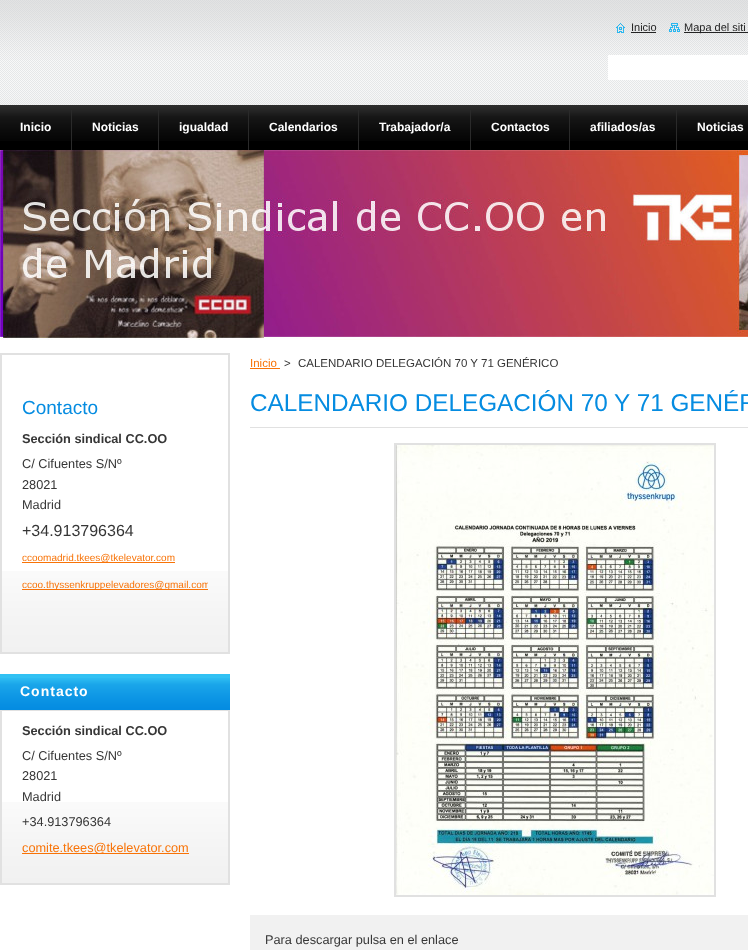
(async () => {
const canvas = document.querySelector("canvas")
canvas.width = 748
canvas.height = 950
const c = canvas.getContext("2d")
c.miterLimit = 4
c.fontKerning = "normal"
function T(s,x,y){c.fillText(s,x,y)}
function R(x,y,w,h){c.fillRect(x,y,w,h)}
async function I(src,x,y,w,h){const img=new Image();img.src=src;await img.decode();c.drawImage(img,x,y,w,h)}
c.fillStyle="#fff"
R(0,0,748,950)
await I("1.png",0,0,748,105)
await I("2.png",616,23,9,10)
c.font="11px Liberation Sans"
c.fillStyle="#242424"
T("Inicio",631,31)
R(631,32,25,1)
await I("3.png",669,23,11,9)
R(684,32,64,1)
T("Mapa del siti",684,31)
c.fillStyle="#fff"
R(608,55,140,25)
c.fillStyle="#000"
R(0,141,748,9)
await I("4.png",0,105,748,36)
c.fillStyle="#2a2a2a"
R(71,110,1,40)
c.font="bold 12px Liberation Sans"
c.fillStyle="#fff"
T("Inicio",20,131)
c.fillStyle="#2a2a2a"
R(158,110,1,40)
c.fillStyle="#fff"
T("Noticias",92,131)
c.fillStyle="#2a2a2a"
R(248,110,1,40)
c.fillStyle="#fff"
T("igualdad",179,131)
c.fillStyle="#2a2a2a"
R(358,110,1,40)
c.fillStyle="#fff"
T("Calendarios",269,131)
c.fillStyle="#2a2a2a"
R(470,110,1,40)
c.fillStyle="#fff"
T("Trabajador/a",379,131)
c.fillStyle="#2a2a2a"
R(569,110,1,40)
c.fillStyle="#fff"
T("Contactos",491,131)
c.fillStyle="#2a2a2a"
R(676,110,1,40)
c.fillStyle="#fff"
T("afiliados/as",590,131)
T("Noticias",697,131)
await I("5.png",0,150,748,190)
await I("6.png",2,571,226,81)
c.strokeStyle="#e1e1e1"
c.lineWidth=2
c.strokeRect(1,354,228,299)
c.font="19px Liberation Sans"
c.fillStyle="#058ce1"
T("Contacto",22,414)
c.font="bold 12.75px Liberation Sans"
c.fillStyle="#363636"
T("Sección sindical CC.OO",22,443)
c.font="12.75px Liberation Sans"
T("C/ Cifuentes S/Nº",22,468)
T("28021",22,489)
T("Madrid",22,509)
c.font="16px Liberation Sans"
T("+34.913796364",22,536)
c.fillStyle="#f87307"
R(22,562,153,1)
c.font="10px Liberation Sans"
T("ccoomadrid.tkees@tkelevator.com",22,561)
R(22,589,186,1)
c.save()
c.beginPath()
c.rect(22,355,186,277)
c.clip()
T("ccoo.thyssenkruppelevadores@gmail.com",22,588)
c.restore()
await I("6.png",2,802,226,81)
c.fillStyle="#31c1f3"
R(0,674,230,4)
await I("7.png",0,678,230,32)
c.fillStyle="#e1e1e1"
R(0,710,230,1)
c.letterSpacing="1px"
c.font="bold 14px Liberation Sans"
c.fillStyle="#fff"
T("Contacto",20,696)
c.fillStyle="#e1e1e1"
R(228,711,2,174)
R(0,883,230,2)
R(0,711,2,174)
c.letterSpacing="0px"
c.font="bold 12.75px Liberation Sans"
c.fillStyle="#363636"
T("Sección sindical CC.OO",22,735)
c.font="12.75px Liberation Sans"
T("C/ Cifuentes S/Nº",22,760)
T("28021",22,780)
T("Madrid",22,801)
T("+34.913796364",22,826)
c.fillStyle="#f87307"
R(22,853,167,1)
T("comite.tkees@tkelevator.com",22,852)
c.font="11.5px Liberation Sans"
T("Inicio",250,367)
R(250,368,30,1)
c.fillStyle="#363636"
T(">",284,367)
T("CALENDARIO DELEGACIÓN 70 Y 71 GENÉRICO",298,367)
c.fillStyle="#e1e1e1"
R(250,427,498,1)
c.font="24.3px Liberation Sans"
c.fillStyle="#058ce1"
T("CALENDARIO DELEGACIÓN 70 Y 71 GENÉR",250,411)
c.strokeRect(395,444,320,452)
await I("8.png",396,445,318,450)
c.fillStyle="#f1f1f1"
R(250,915,498,35)
c.font="12.75px Liberation Sans"
c.fillStyle="#363636"
T("Para descargar pulsa en el enlace",265,944)
})()
